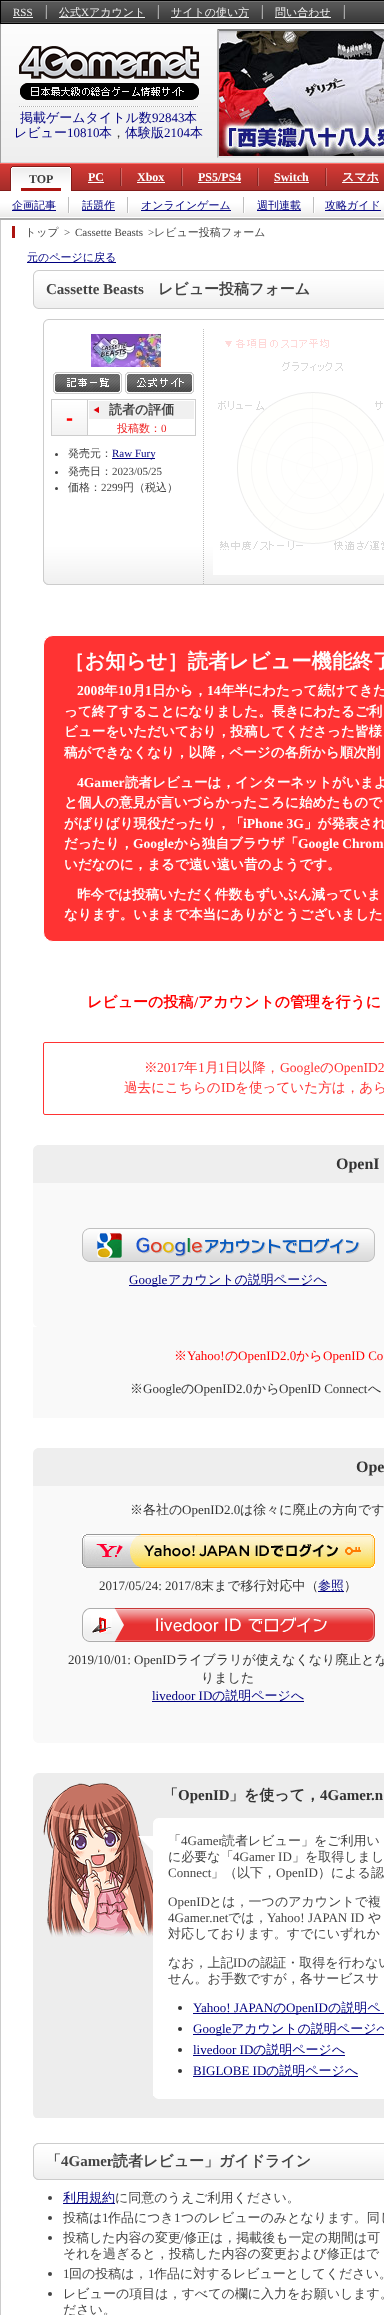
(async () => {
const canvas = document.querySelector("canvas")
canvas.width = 384
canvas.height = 2315
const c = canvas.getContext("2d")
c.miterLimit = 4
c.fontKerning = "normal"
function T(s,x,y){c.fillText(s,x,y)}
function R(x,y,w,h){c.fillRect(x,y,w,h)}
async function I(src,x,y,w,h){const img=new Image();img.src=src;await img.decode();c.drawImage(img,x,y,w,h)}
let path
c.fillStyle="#fff"
R(0,0,384,2315)
c.fillStyle="#ccc"
R(0,220,1,2095)
await I("1.png",1,0,383,163)
c.fillStyle="#000"
R(0,0,1,24)
c.fillStyle="#a7a7a7"
R(46,5,1,14)
c.fillStyle="#5d5d5d"
R(45,5,1,14)
c.font="11px Liberation Serif"
c.fillStyle="#f0f0f0"
T("RSS",13,16)
R(13,17,20,1)
c.fillStyle="#a7a7a7"
R(158,5,1,14)
c.fillStyle="#5d5d5d"
R(157,5,1,14)
c.fillStyle="#f0f0f0"
R(59,17,86,1)
c.font="500 11px WenQuanYi Zen Hei"
T("公式",59,16)
c.font="11px Liberation Serif"
T("X",81,16)
c.font="500 11px WenQuanYi Zen Hei"
T("アカウント",89,16)
c.fillStyle="#a7a7a7"
R(262,5,1,14)
c.fillStyle="#5d5d5d"
R(261,5,1,14)
c.fillStyle="#f0f0f0"
R(171,17,78,1)
T("サイトの使い方",171,16)
c.fillStyle="#a7a7a7"
R(344,5,1,14)
c.fillStyle="#5d5d5d"
R(343,5,1,14)
c.fillStyle="#f0f0f0"
R(275,17,56,1)
T("問い合わせ",275,16)
c.fillStyle="#a0a0a0"
R(0,24,1,139)
await I("2.png",19,46,180,54)
await I("3.png",19,106,180,1)
c.font="500 13px WenQuanYi Zen Hei"
c.fillStyle="#000080"
T("掲載ゲームタイトル数",20,122)
c.font="13px Liberation Serif"
T("92843",152,122)
c.font="500 13px WenQuanYi Zen Hei"
T("本",184,122)
T("レビュー",14,137)
c.font="13px Liberation Serif"
T("10810",67,137)
c.font="500 13px WenQuanYi Zen Hei"
T("本",99,137)
c.fillStyle="#333"
T("，",112,137)
c.fillStyle="#000080"
T("体験版",125,137)
c.font="13px Liberation Serif"
T("2104",164,137)
c.font="500 13px WenQuanYi Zen Hei"
T("本",190,137)
c.fillStyle="#7f7f7f"
path = new Path2D("M217 29h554l-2 2h-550z")
c.fill(path)
c.fillStyle="#e3e3e3"
path = new Path2D("M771 158h-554l2-2h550z")
c.fill(path)
c.fillStyle="#afafaf"
path = new Path2D("M217 158v-129l2 2v125z")
c.fill(path)
await I("4.png",219,31,165,125)
await I("5.png",0,163,384,57)
await I("6.png",10,166,60,25)
await I("7.png",70,166,2,25)
c.fillStyle="#ac1410"
R(21,188,40,3)
c.font="bold 12px Liberation Serif"
c.fillStyle="#3d3d3d"
T("TOP",29,183)
c.fillStyle="#ffffff40"
R(121,168,1,18)
c.fillStyle="#00000040"
R(120,168,1,18)
c.fillStyle="#fff"
T("PC",88,181)
R(88,182,16,1)
c.fillStyle="#ffffff40"
R(182,168,1,18)
c.fillStyle="#00000040"
R(181,168,1,18)
c.fillStyle="#fff"
T("Xbox",137,181)
R(137,182,28,1)
c.fillStyle="#ffffff40"
R(258,168,1,18)
c.fillStyle="#00000040"
R(257,168,1,18)
c.fillStyle="#fff"
T("PS5/PS4",198,181)
R(198,182,43,1)
c.fillStyle="#ffffff40"
R(326,168,1,18)
c.fillStyle="#00000040"
R(325,168,1,18)
c.fillStyle="#fff"
T("Switch",274,181)
R(274,182,35,1)
R(342,182,37,1)
c.font="bold 12px WenQuanYi Zen Hei"
T("スマホ",342,181)
R(69,197,1,16)
c.fillStyle="#bfbfbf"
R(68,197,1,16)
c.fillStyle="#000080"
R(12,210,44,1)
c.font="500 11px WenQuanYi Zen Hei"
T("企画記事",12,209)
c.fillStyle="#fff"
R(128,197,1,16)
c.fillStyle="#bfbfbf"
R(127,197,1,16)
c.fillStyle="#000080"
R(82,210,33,1)
T("話題作",82,209)
c.fillStyle="#fff"
R(244,197,1,16)
c.fillStyle="#bfbfbf"
R(243,197,1,16)
c.fillStyle="#000080"
R(141,210,90,1)
T("オンラインゲーム",141,209)
c.fillStyle="#fff"
R(314,197,1,16)
c.fillStyle="#bfbfbf"
R(313,197,1,16)
c.fillStyle="#000080"
R(257,210,44,1)
T("週刊連載",257,209)
R(325,210,56,1)
T("攻略ガイド",325,209)
c.fillStyle="#ac1410"
R(12,226,3,12)
c.fillStyle="#444"
T("トップ",25,236)
c.font="11px Liberation Serif"
T(">",64,236)
T("Cassette Beasts",75,236)
T(">",148,236)
c.font="500 11px WenQuanYi Zen Hei"
T("レビュー投稿フォーム",154,236)
c.fillStyle="#000080"
R(27,262,89,1)
T("元のページに戻る",27,261)
await I("8.png",33,270,351,5)
await I("9.png",33,275,351,34)
c.font="bold 15px Liberation Serif"
c.fillStyle="#444"
T("Cassette Beasts",46,294)
c.font="bold 15px WenQuanYi Zen Hei"
T("レビュー投稿フォーム",158,294)
await I("10.png",43,324,341,261)
await I("11.png",43,319,341,5)
await I("12.png",203,329,1,255)
await I("13.png",91,334,70,33)
await I("14.png",53,372,69,22)
await I("15.png",125,372,69,22)
await I("16.png",51,399,145,37)
c.font="bold 13px WenQuanYi Zen Hei"
T("読者の評価",109,414)
c.font="bold 21px Liberation Sans"
c.fillStyle="#f00"
T("-",66,425)
c.font="500 11px WenQuanYi Zen Hei"
c.fillStyle="#e22"
T("投稿数：",117,432)
c.font="11px Liberation Serif"
T("0",161,432)
c.fillStyle="#444"
c.beginPath()
c.arc(56.5,454.5,1.5,0,7)
c.fill()
c.font="500 11px WenQuanYi Zen Hei"
T("発売元：",68,457)
c.fillStyle="#000080"
R(112,458,43,1)
c.font="11px Liberation Serif"
T("Raw Fury",112,457)
c.fillStyle="#444"
c.beginPath()
c.arc(56.5,472.5,1.5,0,7)
c.fill()
c.font="500 11px WenQuanYi Zen Hei"
T("発売日：",68,475)
c.font="11px Liberation Serif"
T("2023/05/25",112,475)
c.beginPath()
c.arc(56.5,488.5,1.5,0,7)
c.fill()
c.font="500 11px WenQuanYi Zen Hei"
T("価格：",68,491)
c.font="11px Liberation Serif"
T("2299",101,491)
c.font="500 11px WenQuanYi Zen Hei"
T("円（税込）",123,491)
await I("17.png",213,329,171,246)
c.fillStyle="#f33"
c.beginPath()
c.roundRect(43.5,635.5,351,306,9.5)
c.fill()
c.strokeStyle="#fff"
c.stroke()
c.font="bold 20.4px WenQuanYi Zen Hei"
c.fillStyle="#fff"
T("［お知らせ］読者レビュー機能終了",64,668)
c.font="bold 13.6px Liberation Serif"
T("2008",77,695)
c.font="bold 13.6px WenQuanYi Zen Hei"
T("年",104,695)
c.font="bold 13.6px Liberation Serif"
T("10",118,695)
c.font="bold 13.6px WenQuanYi Zen Hei"
T("月",132,695)
c.font="bold 13.6px Liberation Serif"
T("1",145,695)
c.font="bold 13.6px WenQuanYi Zen Hei"
T("日から，",152,695)
c.font="bold 13.6px Liberation Serif"
T("14",207,695)
c.font="bold 13.6px WenQuanYi Zen Hei"
T("年半にわたって続けてきた",221,695)
T("って終了することになりました。長きにわたるご利",64,716)
T("ビューをいただいており，投稿してくださった皆様",64,736)
T("稿ができなくなり，以降，ページの各所から順次削",64,757)
c.font="bold 13.6px Liberation Serif"
T("4Gamer",77,787)
c.font="bold 13.6px WenQuanYi Zen Hei"
T("読者レビューは，インターネットがいまよ",125,787)
T("と個人の意見が言いづらかったころに始めたもので",64,807)
T("がばりばり現役だったり，「",64,828)
c.font="bold 13.6px Liberation Serif"
T("iPhone 3G",243,828)
c.font="bold 13.6px WenQuanYi Zen Hei"
T("」が発表され",304,828)
T("だったり，",64,848)
c.font="bold 13.6px Liberation Serif"
T("Google",133,848)
c.font="bold 13.6px WenQuanYi Zen Hei"
T("から独自ブラウザ「",174,848)
c.font="bold 13.6px Liberation Serif"
T("Google Chrom",298,848)
c.font="bold 13.6px WenQuanYi Zen Hei"
T("いだなのに，まるで遠い遠い昔のようです。",64,869)
T("昨今では投稿いただく件数もずいぶん減っていま",77,899)
T("なります。いままで本当にありがとうございました",64,919)
c.font="bold 15px WenQuanYi Zen Hei"
c.fillStyle="#f00"
T("レビューの投稿",87,1007)
c.font="bold 15px Liberation Serif"
T("/",194,1007)
c.font="bold 15px WenQuanYi Zen Hei"
T("アカウントの管理を行うに",198,1007)
c.beginPath()
c.roundRect(43.5,1042.5,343,72,1.5)
c.strokeStyle="#f33"
c.stroke()
c.font="500 13.6px WenQuanYi Zen Hei"
c.fillStyle="#f33"
T("※",144,1072)
c.font="13.6px Liberation Serif"
T("2017",157,1072)
c.font="500 13.6px WenQuanYi Zen Hei"
T("年",184,1072)
c.font="13.6px Liberation Serif"
T("1",198,1072)
c.font="500 13.6px WenQuanYi Zen Hei"
T("月",205,1072)
c.font="13.6px Liberation Serif"
T("1",218,1072)
c.font="500 13.6px WenQuanYi Zen Hei"
T("日以降，",225,1072)
c.font="13.6px Liberation Serif"
T("Google",280,1072)
c.font="500 13.6px WenQuanYi Zen Hei"
T("の",320,1072)
c.font="13.6px Liberation Serif"
T("OpenID2",334,1072)
c.font="500 13.6px WenQuanYi Zen Hei"
T("過去にこちらの",124,1092)
c.font="13.6px Liberation Serif"
T("ID",221,1092)
c.font="500 13.6px WenQuanYi Zen Hei"
T("を使っていた方は，あら",235,1092)
c.fillStyle="#eee"
path = new Path2D("M39 1145h345c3.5 0 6 2.5 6 6v32h-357v-32c0-3.5 2.5-6 6-6z")
c.fill(path)
c.font="bold 16px Liberation Serif"
c.fillStyle="#333"
T("OpenI",336,1169)
c.fillStyle="#f9f9f9"
R(33,1183,351,45)
path = new Path2D("M33 1228h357v93c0 3.5-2.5 6-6 6h-345c-3.5 0-6-2.5-6-6z")
c.fill(path)
await I("18.png",82,1228,293,34)
c.fillStyle="#000080"
R(129,1285,198,1)
c.font="13px Liberation Serif"
T("Google",129,1284)
c.font="500 13px WenQuanYi Zen Hei"
T("アカウントの説明ページへ",168,1284)
c.fillStyle="#f9f9f9"
R(33,1327,351,91)
c.fillStyle="#f00"
T("※",174,1360)
c.font="13px Liberation Serif"
T("Yahoo!",187,1360)
c.font="500 13px WenQuanYi Zen Hei"
T("の",225,1360)
c.font="13px Liberation Serif"
T("OpenID2.0",238,1360)
c.font="500 13px WenQuanYi Zen Hei"
T("から",296,1360)
c.font="13px Liberation Serif"
T("OpenID Co",323,1360)
c.font="500 13px WenQuanYi Zen Hei"
c.fillStyle="#333"
T("※",130,1393)
c.font="13px Liberation Serif"
T("Google",143,1393)
c.font="500 13px WenQuanYi Zen Hei"
T("の",181,1393)
c.font="13px Liberation Serif"
T("OpenID2.0",194,1393)
c.font="500 13px WenQuanYi Zen Hei"
T("から",253,1393)
c.font="13px Liberation Serif"
T("OpenID Connect",279,1393)
c.font="500 13px WenQuanYi Zen Hei"
T("へ",368,1393)
c.fillStyle="#eee"
path = new Path2D("M39 1448h345c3.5 0 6 2.5 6 6v32h-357v-32c0-3.5 2.5-6 6-6z")
c.fill(path)
c.font="bold 16px Liberation Serif"
c.fillStyle="#333"
T("Ope",356,1472)
c.fillStyle="#f9f9f9"
R(33,1486,351,48)
c.font="500 13px WenQuanYi Zen Hei"
c.fillStyle="#333"
T("※各社の",130,1514)
c.font="13px Liberation Serif"
T("OpenID2.0",182,1514)
c.font="500 13px WenQuanYi Zen Hei"
T("は徐々に廃止の方向です",240,1514)
c.fillStyle="#f9f9f9"
path = new Path2D("M33 1534h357v203c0 3.5-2.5 6-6 6h-345c-3.5 0-6-2.5-6-6z")
c.fill(path)
await I("19.png",82,1534,293,34)
c.font="13px Liberation Serif"
c.fillStyle="#333"
T("2017/05/24: 2017/8",99,1590)
c.font="500 13px WenQuanYi Zen Hei"
T("末まで移行対応中（",201,1590)
c.fillStyle="#000080"
R(318,1591,26,1)
T("参照",318,1590)
c.fillStyle="#333"
T("）",344,1590)
await I("20.png",82,1608,293,34)
c.font="13px Liberation Serif"
T("2019/10/01: OpenID",68,1664)
c.font="500 13px WenQuanYi Zen Hei"
T("ライブラリが使えなくなり廃止とな",176,1664)
T("りました",201,1682)
c.font="13px Liberation Serif"
c.fillStyle="#000080"
T("livedoor ID",152,1700)
R(152,1701,152,1)
c.font="500 13px WenQuanYi Zen Hei"
T("の説明ページへ",212,1700)
c.fillStyle="#ededed"
R(33,1939,120,155)
await I("21.png",33,1773,351,166)
c.font="bold 15px WenQuanYi Zen Hei"
c.fillStyle="#333"
T("「",163,1800)
c.font="bold 15px Liberation Serif"
T("OpenID",178,1800)
c.font="bold 15px WenQuanYi Zen Hei"
T("」を使って，",229,1800)
c.font="bold 15px Liberation Serif"
T("4Gamer.n",320,1800)
await I("22.png",33,2094,351,24)
c.font="500 13px WenQuanYi Zen Hei"
c.fillStyle="#444"
T("「",168,1845)
c.font="13px Liberation Serif"
T("4Gamer",181,1845)
c.font="500 13px WenQuanYi Zen Hei"
T("読者レビュー」をご利用い",222,1845)
T("に必要な「",168,1861)
c.font="13px Liberation Serif"
T("4Gamer ID",233,1861)
c.font="500 13px WenQuanYi Zen Hei"
T("」を取得しまし",292,1861)
c.font="13px Liberation Serif"
T("Connect",168,1877)
c.font="500 13px WenQuanYi Zen Hei"
T("」（以下，",211,1877)
c.font="13px Liberation Serif"
T("OpenID",276,1877)
c.font="500 13px WenQuanYi Zen Hei"
T("）による認",318,1877)
c.font="13px Liberation Serif"
T("OpenID",168,1906)
c.font="500 13px WenQuanYi Zen Hei"
T("とは，一つのアカウントで複",209,1906)
c.font="13px Liberation Serif"
T("4Gamer.net",168,1922)
c.font="500 13px WenQuanYi Zen Hei"
T("では，",228,1922)
c.font="13px Liberation Serif"
T("Yahoo! JAPAN ID",267,1922)
c.font="500 13px WenQuanYi Zen Hei"
T("や",368,1922)
T("対応しております。すでにいずれか",168,1938)
T("なお，上記",168,1967)
c.font="13px Liberation Serif"
T("ID",233,1967)
c.font="500 13px WenQuanYi Zen Hei"
T("の認証・取得を行わない",247,1967)
T("せん。お手数ですが，各サービスサ",168,1983)
c.fillStyle="#333"
c.beginPath()
c.arc(180,2008,2,0,7)
c.fill()
c.font="13px Liberation Serif"
c.fillStyle="#000080"
T("Yahoo! JAPAN",193,2012)
R(193,2013,191,1)
c.font="500 13px WenQuanYi Zen Hei"
T("の",273,2012)
c.font="13px Liberation Serif"
T("OpenID",286,2012)
c.font="500 13px WenQuanYi Zen Hei"
T("の説明ペ",328,2012)
c.fillStyle="#333"
c.beginPath()
c.arc(180,2029,2,0,7)
c.fill()
c.fillStyle="#000080"
R(193,2034,191,1)
c.font="13px Liberation Serif"
T("Google",193,2033)
c.font="500 13px WenQuanYi Zen Hei"
T("アカウントの説明ページへ",231,2033)
c.fillStyle="#333"
c.beginPath()
c.arc(180,2050,2,0,7)
c.fill()
c.font="13px Liberation Serif"
c.fillStyle="#000080"
T("livedoor ID",193,2054)
R(193,2055,152,1)
c.font="500 13px WenQuanYi Zen Hei"
T("の説明ページへ",253,2054)
c.fillStyle="#333"
c.beginPath()
c.arc(180,2071,2,0,7)
c.fill()
c.font="13px Liberation Serif"
c.fillStyle="#000080"
T("BIGLOBE ID",193,2075)
R(193,2076,165,1)
c.font="500 13px WenQuanYi Zen Hei"
T("の説明ページへ",266,2075)
await I("23.png",33,2143,351,37)
c.font="bold 15px WenQuanYi Zen Hei"
c.fillStyle="#444"
T("「",46,2166)
c.font="bold 15px Liberation Serif"
T("4Gamer",61,2166)
c.font="bold 15px WenQuanYi Zen Hei"
T("読者レビュー」ガイドライン",113,2166)
c.beginPath()
c.arc(50,2198,2,0,7)
c.fill()
c.fillStyle="#000080"
R(63,2203,52,1)
c.font="500 13px WenQuanYi Zen Hei"
T("利用規約",63,2202)
c.fillStyle="#444"
T("に同意のうえご利用ください。",115,2202)
c.beginPath()
c.arc(50,2218,2,0,7)
c.fill()
T("投稿は",63,2222)
c.font="13px Liberation Serif"
T("1",102,2222)
c.font="500 13px WenQuanYi Zen Hei"
T("作品につき",108,2222)
c.font="13px Liberation Serif"
T("1",174,2222)
c.font="500 13px WenQuanYi Zen Hei"
T("つのレビューのみとなります。同じ",181,2222)
c.beginPath()
c.arc(50,2238,2,0,7)
c.fill()
T("投稿した内容の変更",63,2242)
c.font="13px Liberation Serif"
T("/",180,2242)
c.font="500 13px WenQuanYi Zen Hei"
T("修正は，掲載後も一定の期間は可",184,2242)
T("それを過ぎると，投稿した内容の変更および修正はで",63,2258)
c.beginPath()
c.arc(50,2274,2,0,7)
c.fill()
c.font="13px Liberation Serif"
T("1",63,2278)
c.font="500 13px WenQuanYi Zen Hei"
T("回の投稿は，",69,2278)
c.font="13px Liberation Serif"
T("1",148,2278)
c.font="500 13px WenQuanYi Zen Hei"
T("作品に対するレビューとしてください。",154,2278)
c.beginPath()
c.arc(50,2294,2,0,7)
c.fill()
T("レビューの項目は，すべての欄に入力をお願いします。",63,2298)
T("ださい。",63,2314)
})()
